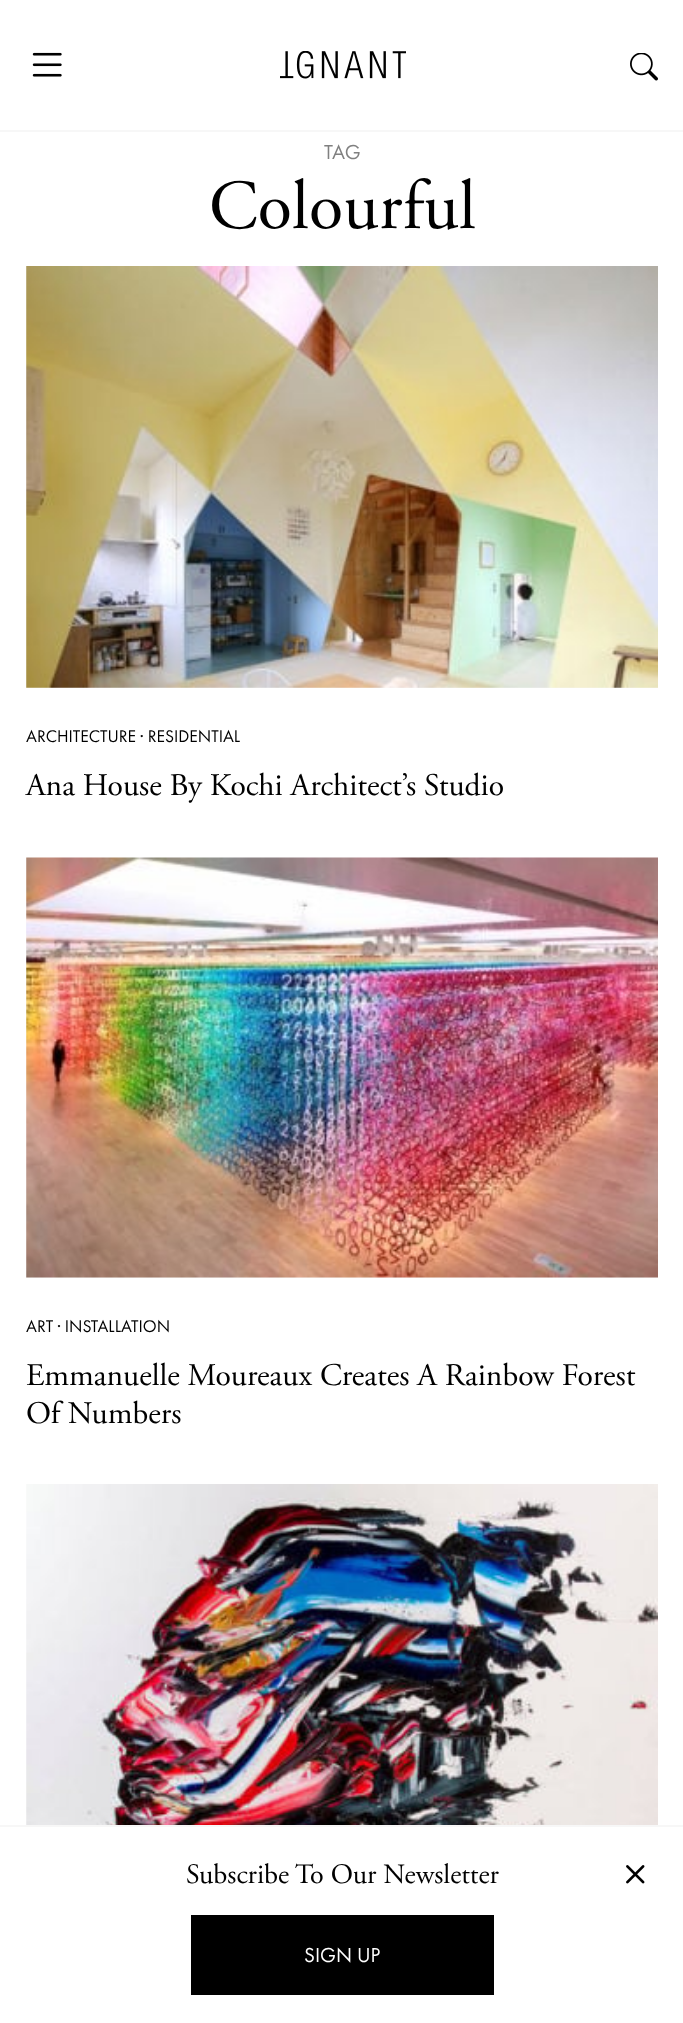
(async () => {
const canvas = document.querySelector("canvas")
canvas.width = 683
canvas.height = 2023
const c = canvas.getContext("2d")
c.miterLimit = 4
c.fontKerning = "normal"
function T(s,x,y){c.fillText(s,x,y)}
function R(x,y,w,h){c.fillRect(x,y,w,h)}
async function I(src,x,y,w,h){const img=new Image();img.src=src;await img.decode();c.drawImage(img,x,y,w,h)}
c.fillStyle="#fff"
R(0,0,683,2023)
c.fillStyle="#f7f7f7"
R(0,130,683,2)
await I("1.png",32,52,30,25)
await I("2.png",280,51,126,28)
await I("3.png",630,53,28,28)
c.font="21px Futura PT"
c.fillStyle="#808080"
T("TAG",324,159)
c.font="70px Adobe Garamond"
c.fillStyle="#000"
T("Colourful",209,228)
c.fillStyle="#f7f7f7"
R(26,266,632,422)
await I("4.png",26,266,632,422)
c.font="17.5px Futura PT"
c.fillStyle="#000"
T("ARCHITECTURE · RESIDENTIAL",26,742)
c.font="31.5px Adobe Garamond"
T("Ana House By Kochi Architect’s Studio",26,795)
c.fillStyle="#f7f7f7"
R(26,858,632,420)
await I("5.png",26,857,632,421)
c.font="17.5px Futura PT"
c.fillStyle="#000"
T("ART · INSTALLATION",26,1332)
c.font="31.5px Adobe Garamond"
T("Emmanuelle Moureaux Creates A Rainbow Forest",26,1385)
T("Of Numbers",26,1423)
await I("6.png",26,1484,632,341)
c.fillStyle="#f7f7f7"
R(0,1825,683,2)
c.font="28px Adobe Garamond"
c.fillStyle="#000"
T("Subscribe To Our Newsletter",186,1883)
await I("7.png",626,1865,19,19)
R(191,1915,303,80)
c.font="21px Futura PT"
c.fillStyle="#fff"
T("SIGN UP",304,1962)
})()
